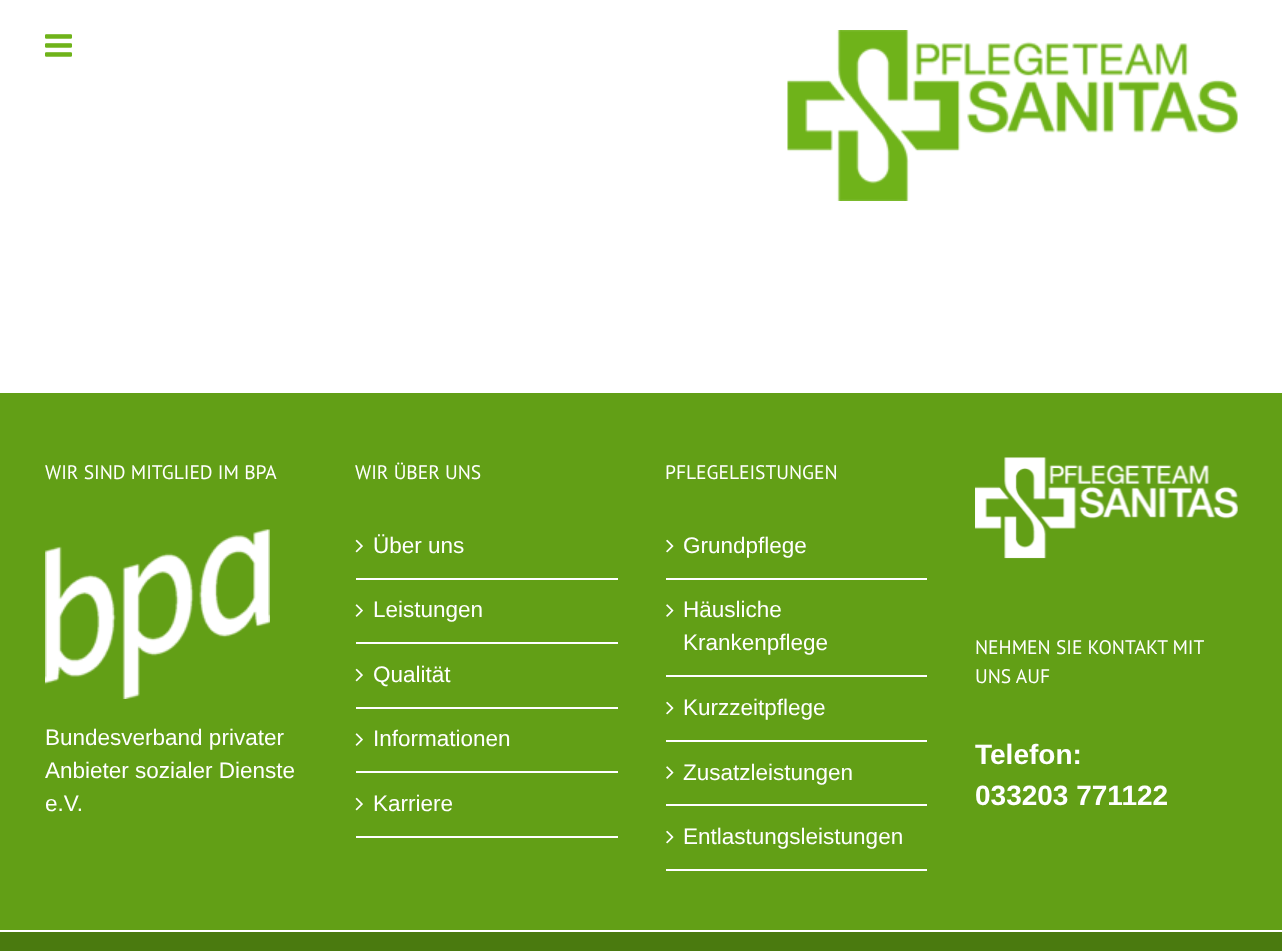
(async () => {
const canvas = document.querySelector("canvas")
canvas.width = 1282
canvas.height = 951
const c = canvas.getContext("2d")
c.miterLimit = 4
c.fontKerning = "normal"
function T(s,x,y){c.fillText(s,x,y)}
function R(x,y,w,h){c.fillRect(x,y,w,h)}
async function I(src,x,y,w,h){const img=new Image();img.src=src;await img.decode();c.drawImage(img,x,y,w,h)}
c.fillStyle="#fff"
R(0,0,1282,951)
await I("1.png",45,34,27,23)
await I("2.png",787,30,451,171)
c.fillStyle="#629f16"
R(0,393,1282,537)
c.font="19.5px PT Sans"
c.fillStyle="#fff"
T("WIR SIND MITGLIED IM BPA",45,479)
await I("3.png",45,529,225,170)
c.font="22.5px Liberation Sans"
T("Bundesverband privater",45,745)
T("Anbieter sozialer Dienste",45,778)
T("e.V.",45,811)
c.font="19.5px PT Sans"
T("WIR ÜBER UNS",355,479)
R(356,578,262,2)
await I("4.png",355,539,8,14)
c.font="22.5px Liberation Sans"
T("Über uns",373,553)
R(356,642,262,2)
await I("5.png",355,604,8,13)
T("Leistungen",373,617)
R(356,707,262,2)
await I("4.png",355,668,8,14)
T("Qualität",373,682)
R(356,771,262,2)
await I("5.png",355,733,8,13)
T("Informationen",373,746)
R(356,836,262,2)
await I("4.png",355,797,8,14)
T("Karriere",373,811)
c.font="19.5px PT Sans"
T("PFLEGELEISTUNGEN",665,479)
R(666,578,261,2)
await I("6.png",666,539,8,14)
c.font="22.5px Liberation Sans"
T("Grundpflege",683,553)
R(666,675,261,2)
await I("7.png",666,604,8,13)
T("Häusliche",683,617)
T("Krankenpflege",683,650)
R(666,740,261,2)
await I("6.png",666,701,8,14)
T("Kurzzeitpflege",683,715)
R(666,804,261,2)
await I("7.png",666,766,8,13)
T("Zusatzleistungen",683,780)
R(666,869,261,2)
await I("6.png",666,830,8,14)
T("Entlastungsleistungen",683,844)
await I("8.png",975,457,263,102)
c.font="19.5px PT Sans"
T("NEHMEN SIE KONTAKT MIT",975,654)
T("UNS AUF",975,683)
c.font="bold 28px Liberation Sans"
T("Telefon:",975,764)
T("033203 771122",975,805)
c.fillStyle="#4a7a0f"
R(0,932,1282,19)
})()
